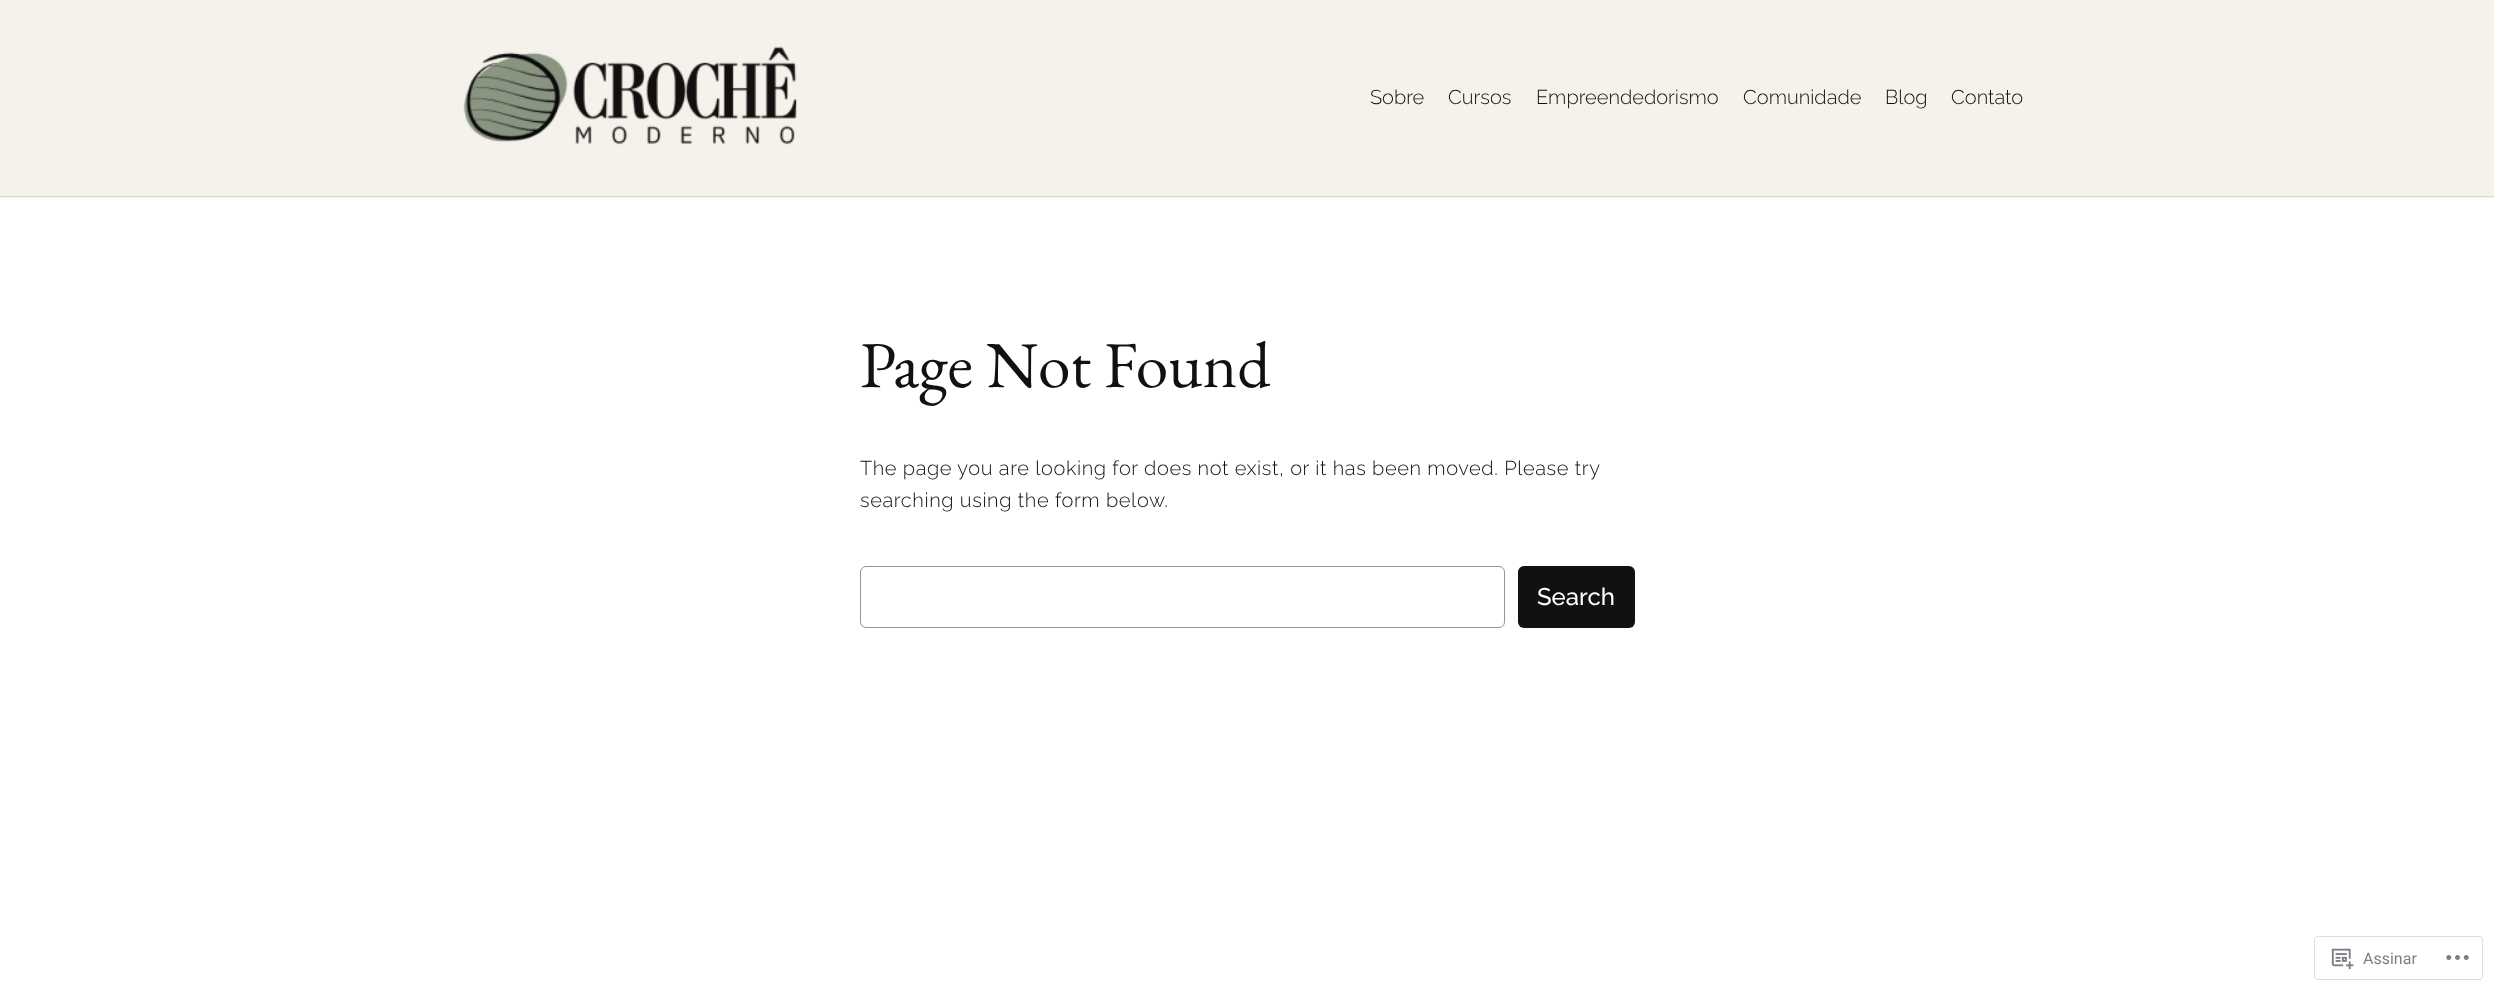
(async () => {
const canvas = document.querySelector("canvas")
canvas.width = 2494
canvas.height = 992
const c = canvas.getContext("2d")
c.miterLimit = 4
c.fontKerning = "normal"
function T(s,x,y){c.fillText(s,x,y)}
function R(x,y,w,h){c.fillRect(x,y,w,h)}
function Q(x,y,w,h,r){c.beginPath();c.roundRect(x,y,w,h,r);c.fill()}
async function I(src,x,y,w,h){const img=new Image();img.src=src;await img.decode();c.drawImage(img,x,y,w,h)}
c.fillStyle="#fff"
R(0,0,2494,992)
c.fillStyle="#f4f2eb"
R(0,0,2494,198)
c.fillStyle="#d9d7d1"
R(0,196,2494,1)
await I("1.png",463,46,334,99)
c.font="300 20px Raleway"
c.fillStyle="#111"
T("Sobre",1370,104)
T("Cursos",1448,104)
T("Empreendedorismo",1536,104)
T("Comunidade",1743,104)
T("Blog",1885,104)
T("Contato",1951,104)
c.font="65.5px EB Garamond"
T("Page Not Found",860,387)
c.letterSpacing="0.6px"
c.font="300 20px Raleway"
T("The page you are looking for does not exist, or it has been moved. Please try",860,475)
T("searching using the form below.",860,507)
c.beginPath()
c.roundRect(860.5,566.5,644,61,5.5)
c.strokeStyle="#949494"
c.stroke()
Q(1518,566,117,62,6)
c.letterSpacing="0px"
c.font="500 24px Raleway"
c.fillStyle="#fff"
T("Search",1537,605)
c.beginPath()
c.roundRect(2314.5,936.5,168,43,3.5)
c.strokeStyle="#dddddf"
c.stroke()
await I("2.png",2331,948,23,22)
c.font="16px Roboto"
c.fillStyle="#7b7f85"
T("Assinar",2363,964)
await I("3.png",2446,955,23,5)
})()
